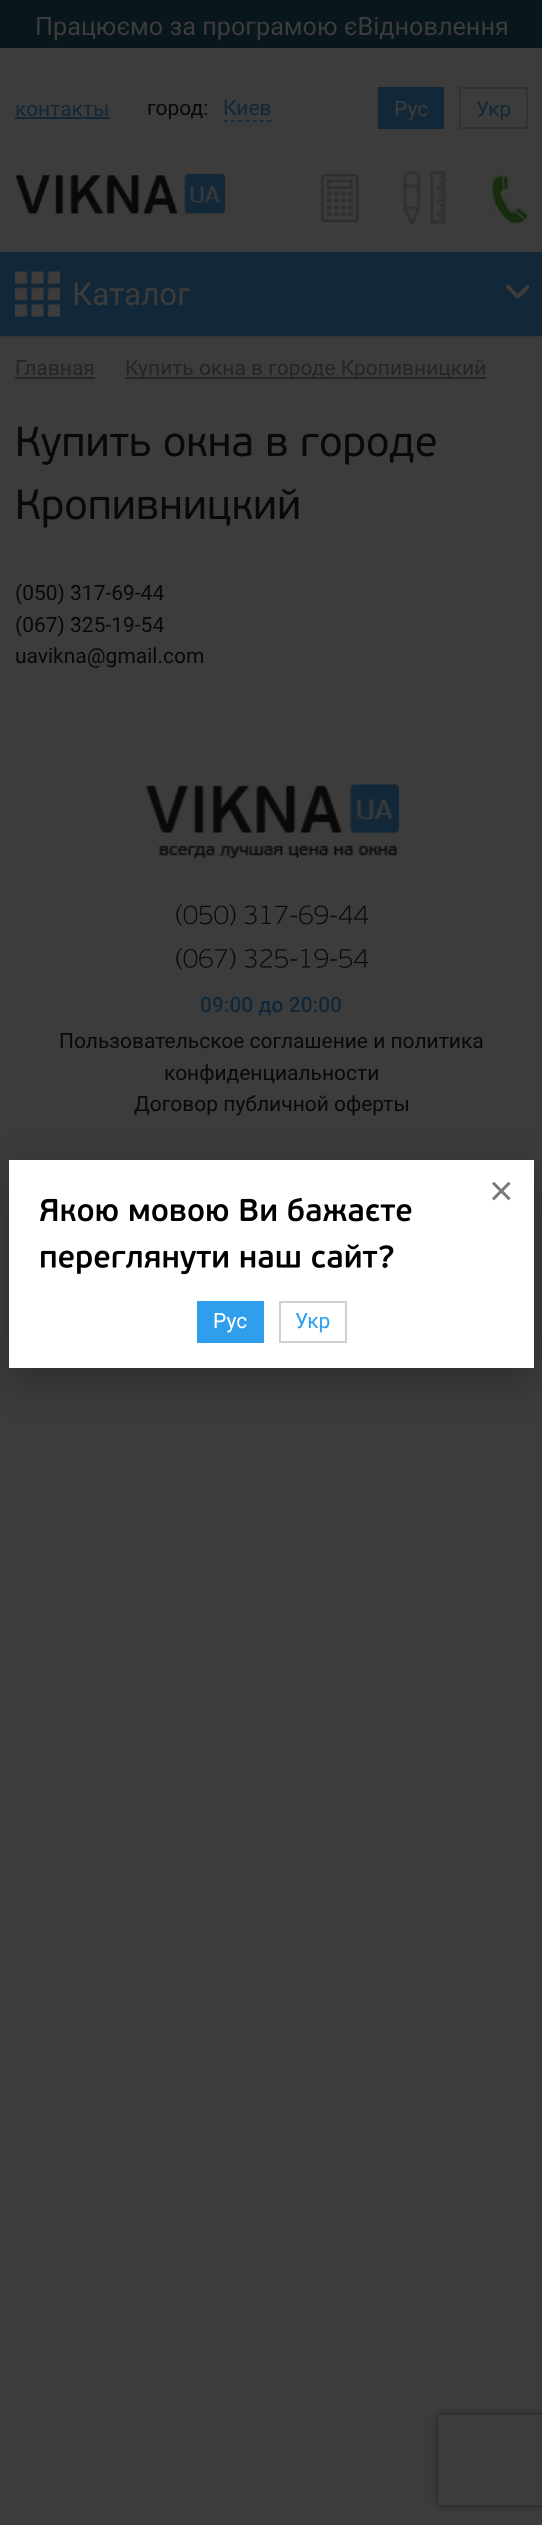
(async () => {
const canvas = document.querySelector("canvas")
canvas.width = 542
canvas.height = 2525
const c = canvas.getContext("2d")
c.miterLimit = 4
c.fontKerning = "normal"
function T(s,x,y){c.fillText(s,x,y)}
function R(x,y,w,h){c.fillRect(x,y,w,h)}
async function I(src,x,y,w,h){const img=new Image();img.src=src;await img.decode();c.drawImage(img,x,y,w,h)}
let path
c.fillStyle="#3c3c3c"
R(0,0,542,2525)
c.fillStyle="#09171c"
R(0,0,542,48)
c.font="25.25px Roboto"
c.fillStyle="#3c3c3c"
T("Працюємо за програмою єВідновлення",35,35)
c.font="21px Roboto"
c.fillStyle="#122838"
T("контакты",15,116)
R(15,117,95,2)
c.fillStyle="#090909"
T("город:",147,115)
c.fillStyle="#122838"
T("Киев",223,115)
path = new Path2D("M223.5 121h48")
c.strokeStyle="#122838"
c.lineWidth=1.5
c.setLineDash([4.5,2.75])
c.stroke(path)
R(378,87,66,42)
c.fillStyle="#3c3c3c"
T("Рус",394,116)
c.strokeStyle="#323232"
c.lineWidth=2
c.setLineDash([])
c.strokeRect(460,88,67,40)
c.fillStyle="#122838"
T("Укр",476,116)
await I("1.png",15,174,210,41)
await I("2.png",321,174,38,48)
await I("3.png",403,171,43,54)
await I("4.png",490,175,38,49)
R(0,252,542,84)
c.fillStyle="#373739"
R(0,336,542,2)
await I("5.png",15,271,45,46)
c.font="31.5px Roboto"
c.fillStyle="#3c3c3c"
T("Каталог",72,305)
await I("6.png",506,284,24,15)
c.font="21px Roboto"
c.fillStyle="#252525"
T("Главная",15,375)
R(15,377,80,2)
R(125,377,361,2)
T("Купить окна в городе Кропивницкий",125,375)
await I("7.png",18,426,418,39)
await I("8.png",18,488,281,40)
c.fillStyle="#090909"
T("(050) 317-69-44",15,600)
T("(067) 325-19-54",15,632)
T("uavikna@gmail.com",15,663)
await I("9.png",145,784,254,74)
await I("10.png",176,904,193,22)
await I("11.png",176,947,193,23)
c.font="500 21px Roboto"
c.fillStyle="#122838"
T("09:00 до 20:00",200,1012)
c.font="21px Roboto"
c.fillStyle="#090909"
T("Пользовательское соглашение и политика",59,1048)
T("конфиденциальности",164,1080)
T("Договор публичной оферты",134,1111)
c.fillStyle="#00000045"
c.filter="blur(20px)"
c.beginPath()
c.rect(9,1172,525,208)
c.fill()
c.filter="none"
c.fillStyle="#fff"
R(9,1160,525,208)
c.font="42px Liberation Sans"
c.fillStyle="#7a7a7a"
T("×",489,1205)
await I("12.png",40,1197,372,25)
await I("13.png",41,1244,353,31)
c.fillStyle="#2e9eed"
R(197,1301,67,42)
c.font="21px Roboto"
c.fillStyle="#fff"
T("Рус",213,1328)
c.strokeStyle="#d0d0d0"
c.strokeRect(280,1302,66,40)
c.fillStyle="#2e9eed"
T("Укр",295,1328)
c.save()
path = new Path2D("M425 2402h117v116h-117zm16 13h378c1.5 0 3 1.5 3 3v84c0 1.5-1.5 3-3 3h-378c-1.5 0-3-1.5-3-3v-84c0-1.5 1.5-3 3-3z")
c.clip(path,"evenodd")
c.fillStyle="#222"
c.filter="blur(4px)"
c.beginPath()
c.roundRect(438,2415,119,90,3)
c.fill()
c.filter="none"
c.restore()
})()
